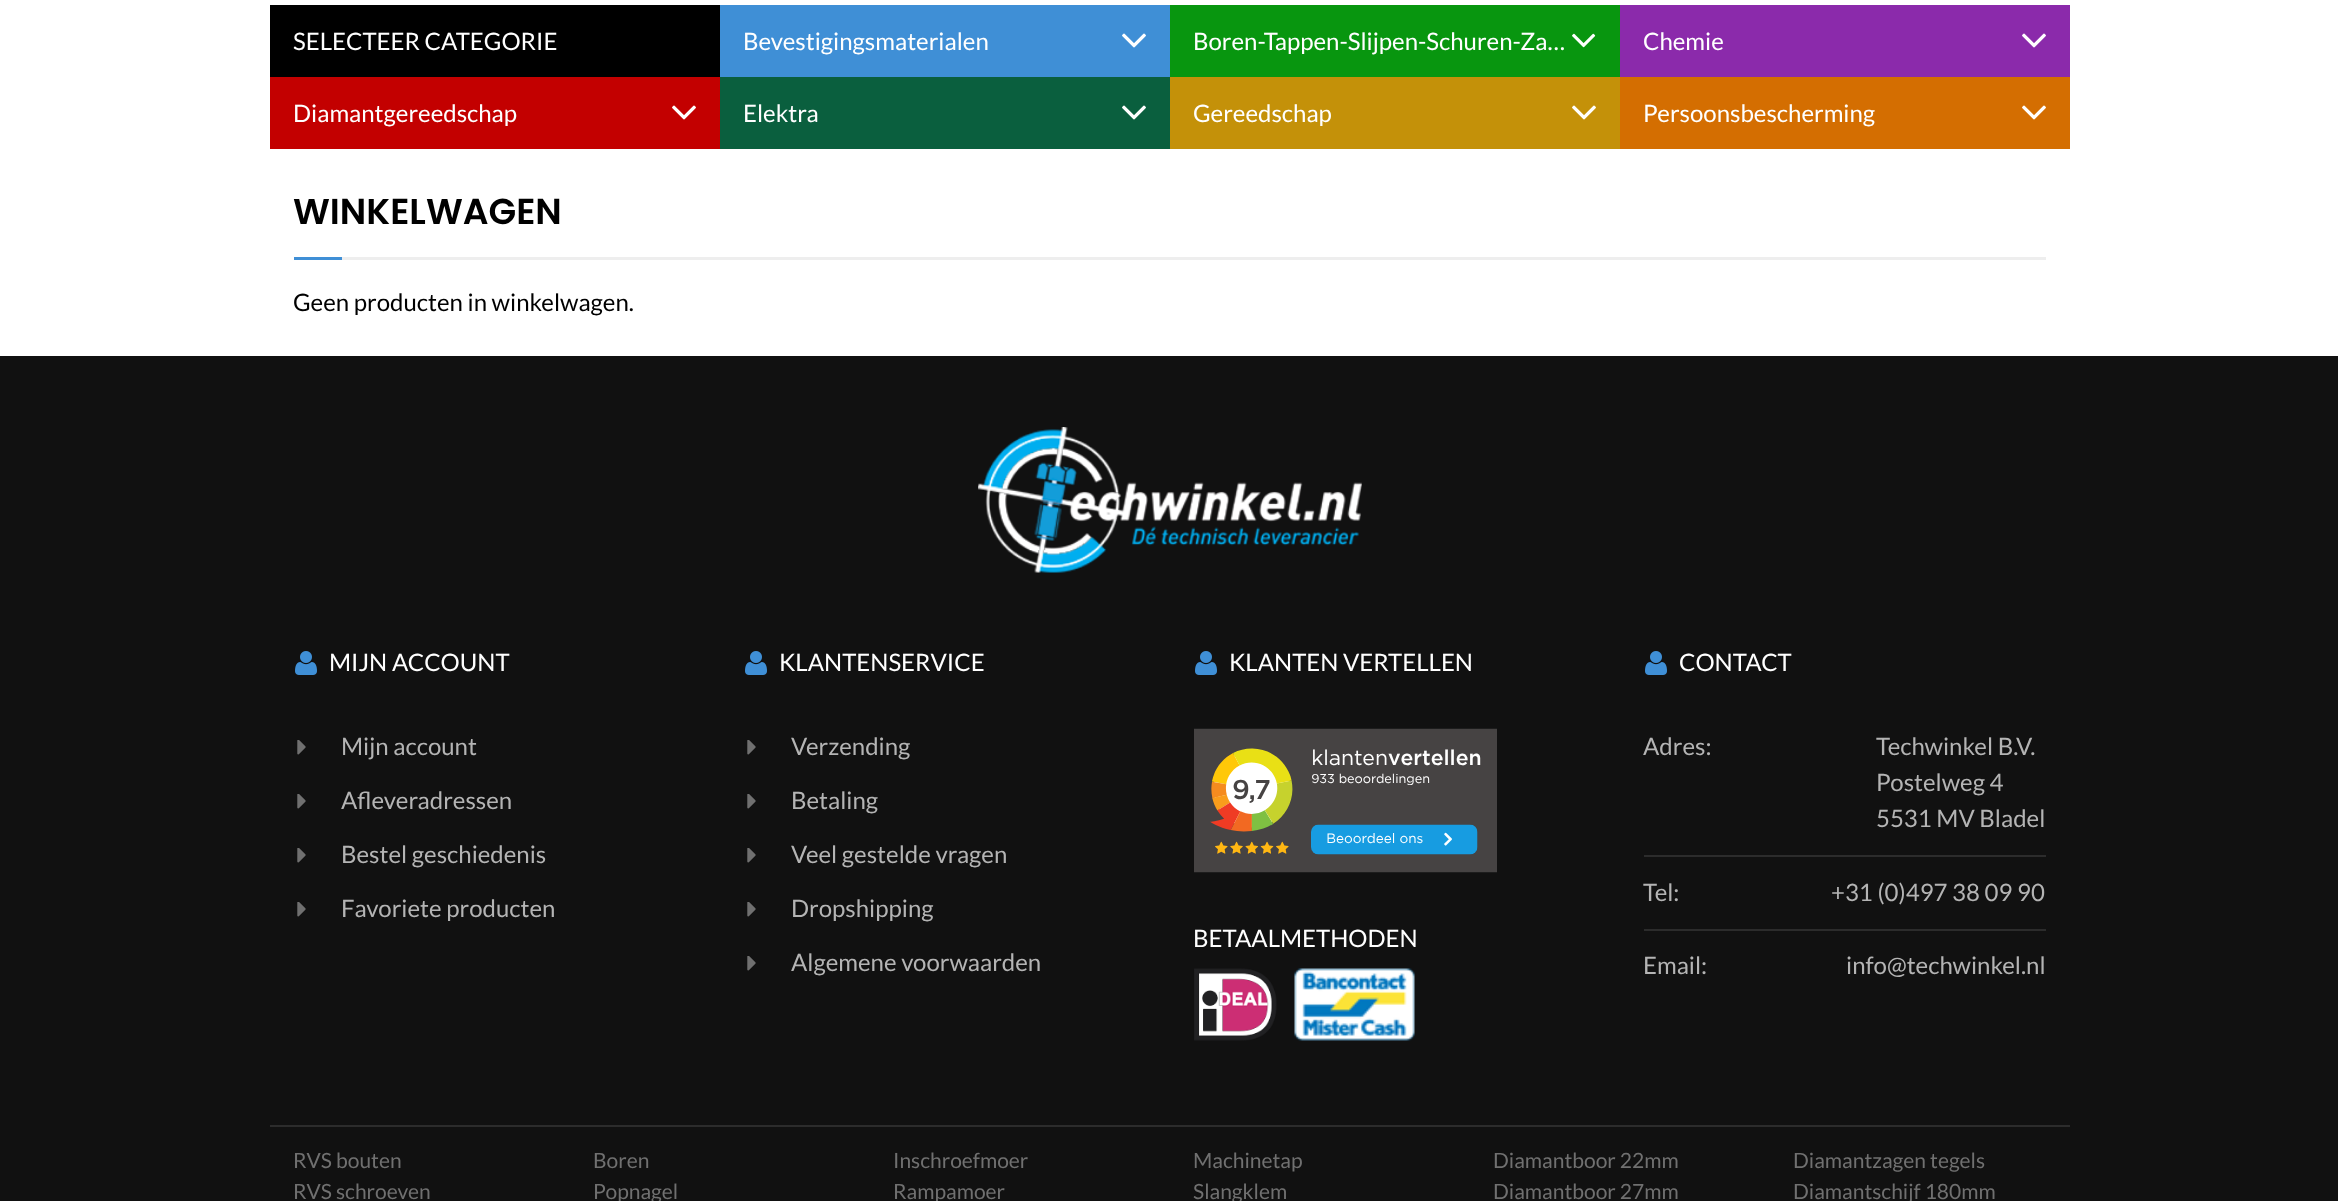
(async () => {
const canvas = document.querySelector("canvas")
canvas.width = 2338
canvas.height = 1201
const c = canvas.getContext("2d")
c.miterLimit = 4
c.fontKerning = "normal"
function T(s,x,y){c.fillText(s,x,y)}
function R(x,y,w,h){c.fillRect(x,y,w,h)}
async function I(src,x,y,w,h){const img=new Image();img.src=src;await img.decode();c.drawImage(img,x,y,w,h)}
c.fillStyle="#fff"
R(0,0,2338,1201)
c.fillStyle="#000"
R(270,5,450,72)
c.font="24px Lato"
c.fillStyle="#fff"
T("SELECTEER CATEGORIE",293,50)
c.fillStyle="#3f8fd6"
R(720,5,450,72)
c.fillStyle="#fff"
T("Bevestigingsmaterialen",743,50)
await I("1.png",1122,33,24,15)
c.fillStyle="#08960f"
R(1170,5,450,72)
c.fillStyle="#fff"
T("Boren-Tappen-Slijpen-Schuren-Za…",1193,50)
await I("2.png",1572,33,24,15)
c.fillStyle="#8b2aab"
R(1620,5,450,72)
c.fillStyle="#fff"
T("Chemie",1643,50)
await I("3.png",2022,33,24,15)
c.fillStyle="#c30000"
R(270,77,450,72)
c.fillStyle="#fff"
T("Diamantgereedschap",293,122)
await I("4.png",672,105,24,15)
c.fillStyle="#0a5f3e"
R(720,77,450,72)
c.fillStyle="#fff"
T("Elektra",743,122)
await I("5.png",1122,105,24,15)
c.fillStyle="#c49109"
R(1170,77,450,72)
c.fillStyle="#fff"
T("Gereedschap",1193,122)
await I("6.png",1572,105,24,15)
c.fillStyle="#d46e01"
R(1620,77,450,72)
c.fillStyle="#fff"
T("Persoonsbescherming",1643,122)
await I("7.png",2022,105,24,15)
c.fillStyle="#eee"
R(342,257,1704,3)
c.font="600 36px Poppins"
c.fillStyle="#000"
T("WINKELWAGEN",293,224)
c.fillStyle="#3f8fd6"
R(294,257,48,3)
c.font="24px Lato"
c.fillStyle="#000"
T("Geen producten in winkelwagen.",293,311)
c.fillStyle="#111"
R(0,356,2338,845)
await I("8.png",978,427,384,146)
c.fillStyle="#2c2c2c"
R(270,1125,1800,2)
await I("9.png",295,651,22,24)
c.fillStyle="#fff"
T("MIJN ACCOUNT",329,671)
await I("10.png",297,740,9,15)
c.fillStyle="#b4b4b4"
T("Mijn account",341,755)
await I("10.png",297,794,9,15)
T("Afleveradressen",341,809)
await I("10.png",297,848,9,15)
T("Bestel geschiedenis",341,863)
await I("10.png",297,902,9,15)
T("Favoriete producten",341,917)
await I("9.png",745,651,22,24)
c.fillStyle="#fff"
T("KLANTENSERVICE",779,671)
await I("10.png",747,740,9,15)
c.fillStyle="#b4b4b4"
T("Verzending",791,755)
await I("10.png",747,794,9,15)
T("Betaling",791,809)
await I("10.png",747,848,9,15)
T("Veel gestelde vragen",791,863)
await I("10.png",747,902,9,15)
T("Dropshipping",791,917)
await I("10.png",747,956,9,15)
T("Algemene voorwaarden",791,971)
await I("9.png",1195,651,22,24)
c.fillStyle="#fff"
T("KLANTEN VERTELLEN",1229,671)
await I("11.png",1194,728,303,145)
T("BETAALMETHODEN",1193,947)
await I("12.png",1194,968,83,73)
await I("13.png",1294,968,121,73)
await I("9.png",1645,651,22,24)
T("CONTACT",1679,671)
c.fillStyle="#2c2c2c"
R(1644,855,402,2)
c.fillStyle="#b4b4b4"
T("Adres:",1643,755)
T("Techwinkel B.V.",1876,755)
T("Postelweg 4",1876,791)
T("5531 MV Bladel",1876,827)
c.fillStyle="#2c2c2c"
R(1644,929,402,2)
c.fillStyle="#b4b4b4"
T("Tel:",1643,901)
T("+31 (0)497 38 09 90",1831,901)
T("Email:",1643,974)
T("info@techwinkel.nl",1846,974)
c.font="21px Lato"
c.fillStyle="#707070"
T("RVS bouten",293,1168)
T("RVS schroeven",293,1199)
T("Boren",593,1168)
T("Popnagel",593,1199)
T("Inschroefmoer",893,1168)
T("Rampamoer",893,1199)
T("Machinetap",1193,1168)
T("Slangklem",1193,1199)
T("Diamantboor 22mm",1493,1168)
T("Diamantboor 27mm",1493,1199)
T("Diamantzagen tegels",1793,1168)
T("Diamantschijf 180mm",1793,1199)
})()
